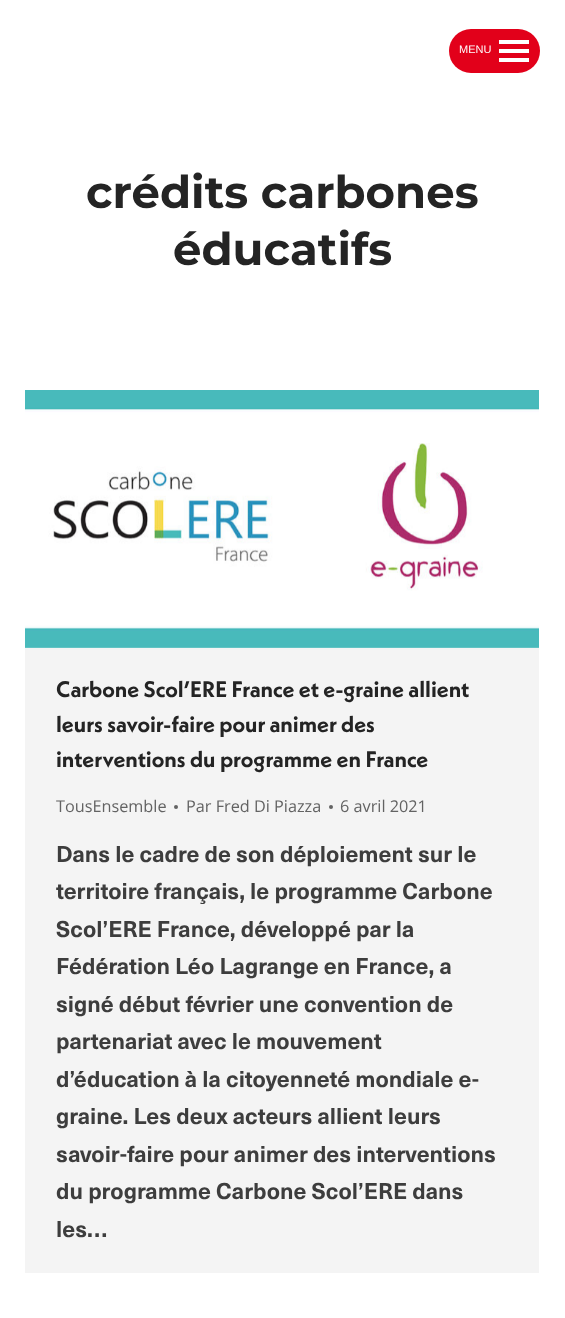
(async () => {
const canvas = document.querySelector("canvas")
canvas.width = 565
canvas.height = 1318
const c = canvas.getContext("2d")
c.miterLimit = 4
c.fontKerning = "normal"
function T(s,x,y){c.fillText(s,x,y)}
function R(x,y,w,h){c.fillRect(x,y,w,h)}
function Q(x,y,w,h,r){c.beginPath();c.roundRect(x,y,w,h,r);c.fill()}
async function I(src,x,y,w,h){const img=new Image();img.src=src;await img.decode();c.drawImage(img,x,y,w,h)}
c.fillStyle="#fff"
R(0,0,565,1318)
c.fillStyle="#e2001a"
Q(449,29,91,44,22)
c.font="11px Liberation Sans"
c.fillStyle="#fff"
T("MENU",459,53)
R(499,40,30,4)
R(499,49,30,4)
R(499,58,30,4)
c.font="bold 45px Montserrat"
c.fillStyle="#242424"
T("crédits carbones",86,208)
T("éducatifs",173,265)
c.fillStyle="#f4f4f4"
R(25,647,514,626)
await I("1.png",25,390,514,258)
c.font="bold 22.5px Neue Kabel"
c.fillStyle="#242424"
T("Carbone Scol’ERE France et e-graine allient",56,697)
T("leurs savoir-faire pour animer des",56,732)
T("interventions du programme en France",56,767)
c.font="16.25px Open Sans"
c.fillStyle="#636363"
T("TousEnsemble",56,812)
c.beginPath()
c.arc(176,807,2,0,7)
c.fill()
T("Par Fred Di Piazza",186,812)
c.beginPath()
c.arc(331,807,2,0,7)
c.fill()
T("6 avril 2021",340,812)
c.font="bold 22.5px 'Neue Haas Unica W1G'"
c.fillStyle="#3d3d3d"
T("Dans le cadre de son déploiement sur le",56,862)
T("territoire français, le programme Carbone",56,899)
T("Scol’ERE France, développé par la",56,937)
T("Fédération Léo Lagrange en France, a",56,974)
T("signé début février une convention de",56,1012)
T("partenariat avec le mouvement",56,1049)
T("d’éducation à la citoyenneté mondiale e-",56,1087)
T("graine. Les deux acteurs allient leurs",56,1124)
T("savoir-faire pour animer des interventions",56,1162)
T("du programme Carbone Scol’ERE dans",56,1199)
T("les…",56,1237)
})()
